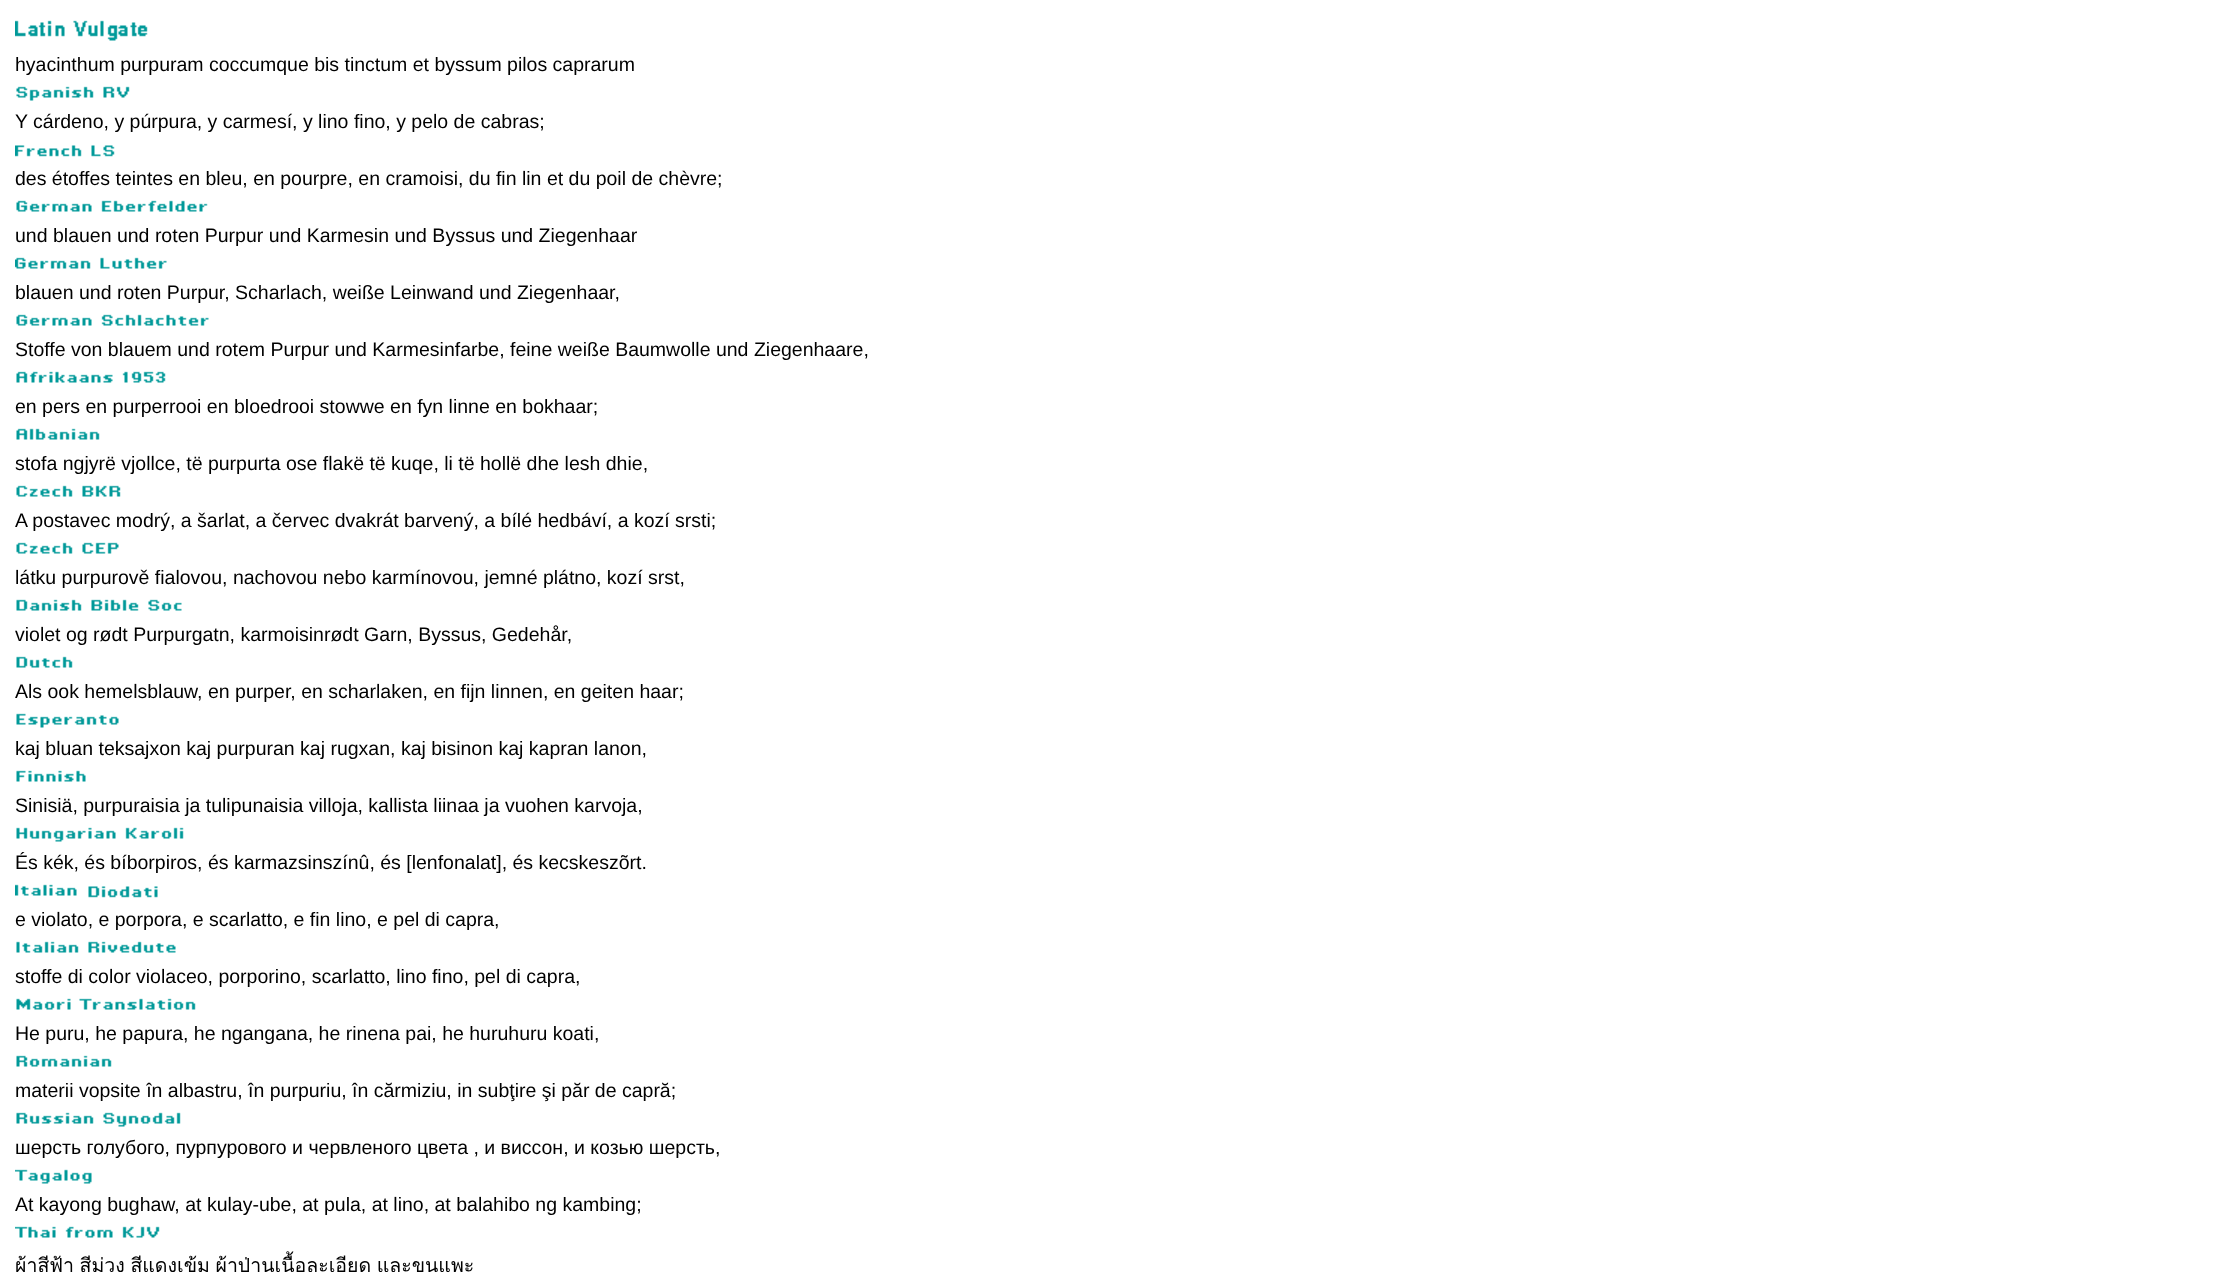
(async () => {
const canvas = document.querySelector("canvas")
canvas.width = 2234
canvas.height = 1273
const c = canvas.getContext("2d")
c.miterLimit = 4
c.fontKerning = "normal"
function T(s,x,y){c.fillText(s,x,y)}
function R(x,y,w,h){c.fillRect(x,y,w,h)}
async function I(src,x,y,w,h){const img=new Image();img.src=src;await img.decode();c.drawImage(img,x,y,w,h)}
c.fillStyle="#fff"
R(0,0,2234,1273)
await I("1.png",15,20,133,21)
c.font="19.5px Liberation Sans"
c.fillStyle="#000"
T("hyacinthum purpuram coccumque bis tinctum et byssum pilos caprarum",15,71)
await I("2.png",16,86,114,15)
T("Y cárdeno, y púrpura, y carmesí, y lino fino, y pelo de cabras;",15,128)
await I("3.png",15,145,100,12)
T("des étoffes teintes en bleu, en pourpre, en cramoisi, du fin lin et du poil de chèvre;",15,185)
await I("4.png",16,200,192,12)
T("und blauen und roten Purpur und Karmesin und Byssus und Ziegenhaar",15,242)
await I("5.png",15,257,152,12)
T("blauen und roten Purpur, Scharlach, weiße Leinwand und Ziegenhaar,",15,299)
await I("6.png",16,314,193,12)
T("Stoffe von blauem und rotem Purpur und Karmesinfarbe, feine weiße Baumwolle und Ziegenhaare,",15,356)
await I("7.png",16,371,150,12)
T("en pers en purperrooi en bloedrooi stowwe en fyn linne en bokhaar;",15,413)
await I("8.png",16,428,84,12)
T("stofa ngjyrë vjollce, të purpurta ose flakë të kuqe, li të hollë dhe lesh dhie,",15,470)
await I("9.png",16,485,105,12)
T("A postavec modrý, a šarlat, a červec dvakrát barvený, a bílé hedbáví, a kozí srsti;",15,527)
await I("10.png",16,542,103,12)
T("látku purpurově fialovou, nachovou nebo karmínovou, jemné plátno, kozí srst,",15,584)
await I("11.png",16,599,166,12)
T("violet og rødt Purpurgatn, karmoisinrødt Garn, Byssus, Gedehår,",15,641)
await I("12.png",16,656,57,12)
T("Als ook hemelsblauw, en purper, en scharlaken, en fijn linnen, en geiten haar;",15,698)
await I("13.png",16,713,103,15)
T("kaj bluan teksajxon kaj purpuran kaj rugxan, kaj bisinon kaj kapran lanon,",15,755)
await I("14.png",16,770,70,12)
T("Sinisiä, purpuraisia ja tulipunaisia villoja, kallista liinaa ja vuohen karvoja,",15,812)
await I("15.png",16,827,168,15)
T("És kék, és bíborpiros, és karmazsinszínû, és [lenfonalat], és kecskeszõrt.",15,869)
await I("16.png",15,884,143,14)
T("e violato, e porpora, e scarlatto, e fin lino, e pel di capra,",15,926)
await I("17.png",16,941,160,12)
T("stoffe di color violaceo, porporino, scarlatto, lino fino, pel di capra,",15,983)
await I("18.png",16,998,180,12)
T("He puru, he papura, he ngangana, he rinena pai, he huruhuru koati,",15,1040)
await I("19.png",16,1055,96,12)
T("materii vopsite în albastru, în purpuriu, în cărmiziu, in subţire şi păr de capră;",15,1097)
await I("20.png",16,1112,165,15)
T("шерсть голубого, пурпурового и червленого цвета , и виссон, и козью шерсть,",15,1154)
await I("21.png",15,1169,77,15)
T("At kayong bughaw, at kulay-ube, at pula, at lino, at balahibo ng kambing;",15,1211)
await I("22.png",15,1226,145,12)
c.wordSpacing="-1px"
c.font="19.5px Loma"
T("ผ้าสีฟ้า สีม่วง สีแดงเข้ม ผ้าป่านเนื้อละเอียด และขนแพะ",15,1272)
})()
